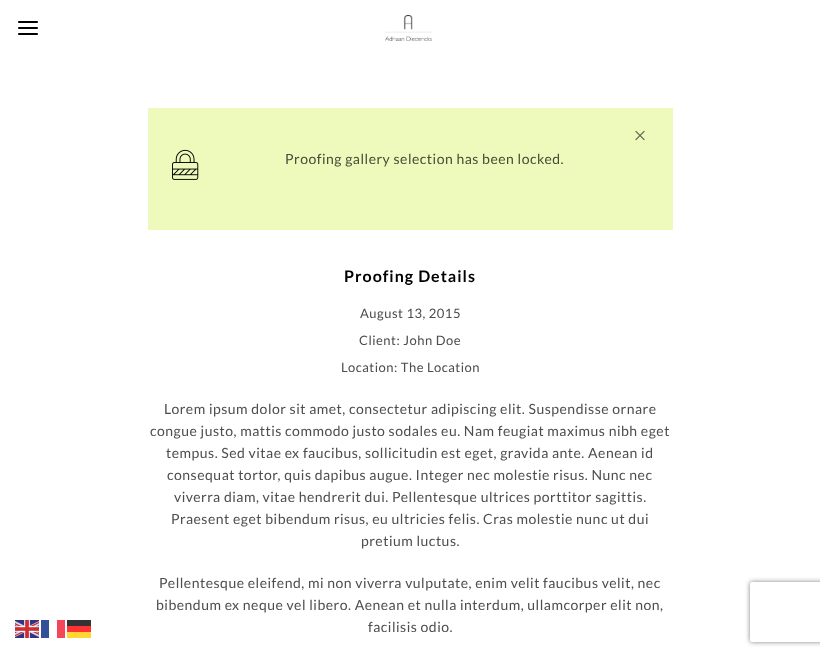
(async () => {
const canvas = document.querySelector("canvas")
canvas.width = 820
canvas.height = 656
const c = canvas.getContext("2d")
c.miterLimit = 4
c.fontKerning = "normal"
function T(s,x,y){c.fillText(s,x,y)}
function R(x,y,w,h){c.fillRect(x,y,w,h)}
async function I(src,x,y,w,h){const img=new Image();img.src=src;await img.decode();c.drawImage(img,x,y,w,h)}
let path
c.fillStyle="#fff"
R(0,0,820,656)
await I("1.png",18,21,20,14)
await I("2.png",385,15,47,26)
await I("3.png",15,620,24,18)
c.fillStyle="#335199"
R(41,620,8,18)
c.fillStyle="#f54659"
R(57,620,8,18)
c.fillStyle="#333"
R(67,620,24,6)
c.fillStyle="#f33"
R(67,626,24,6)
c.fillStyle="#ffd633"
R(67,632,24,6)
c.fillStyle="#eefabb"
R(148,108,525,122)
await I("4.png",635,130,10,11)
await I("5.png",172,149,27,31)
c.letterSpacing="0.5px"
c.font="14px Lato"
c.fillStyle="#474b38"
T("Proofing gallery selection has been locked.",285,164)
c.letterSpacing="1px"
c.font="bold 16px Lato"
c.fillStyle="#000"
T("Proofing Details",344,282)
c.letterSpacing="0.5px"
c.font="13px Lato"
c.fillStyle="#4d4d4d"
T("August 13, 2015",360,318)
T("Client: John Doe",359,345)
T("Location: The Location",341,372)
c.font="14px Lato"
T("Lorem ipsum dolor sit amet, consectetur adipiscing elit. Suspendisse ornare",164,414)
T("congue justo, mattis commodo justo sodales eu. Nam feugiat maximus nibh eget",150,436)
T("tempus. Sed vitae ex faucibus, sollicitudin est eget, gravida ante. Aenean id",166,458)
T("consequat tortor, quis dapibus augue. Integer nec molestie risus. Nunc nec",167,480)
T("viverra diam, vitae hendrerit dui. Pellentesque ultrices porttitor sagittis.",174,502)
T("Praesent eget bibendum risus, eu ultricies felis. Cras molestie nunc ut dui",171,524)
T("pretium luctus.",361,546)
T("Pellentesque eleifend, mi non viverra vulputate, enim velit faucibus velit, nec",159,588)
T("bibendum ex neque vel libero. Aenean et nulla interdum, ullamcorper elit non,",156,610)
T("facilisis odio.",368,632)
c.save()
path = new Path2D("M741 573h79v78h-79zm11 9h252c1 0 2 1 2 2v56c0 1-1 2-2 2h-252c-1 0-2-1-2-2v-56c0-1 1-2 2-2z")
c.clip(path,"evenodd")
c.fillStyle="#808080"
c.filter="blur(2.5px)"
c.beginPath()
c.roundRect(750,582,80,60,2)
c.fill()
c.filter="none"
c.restore()
})()
